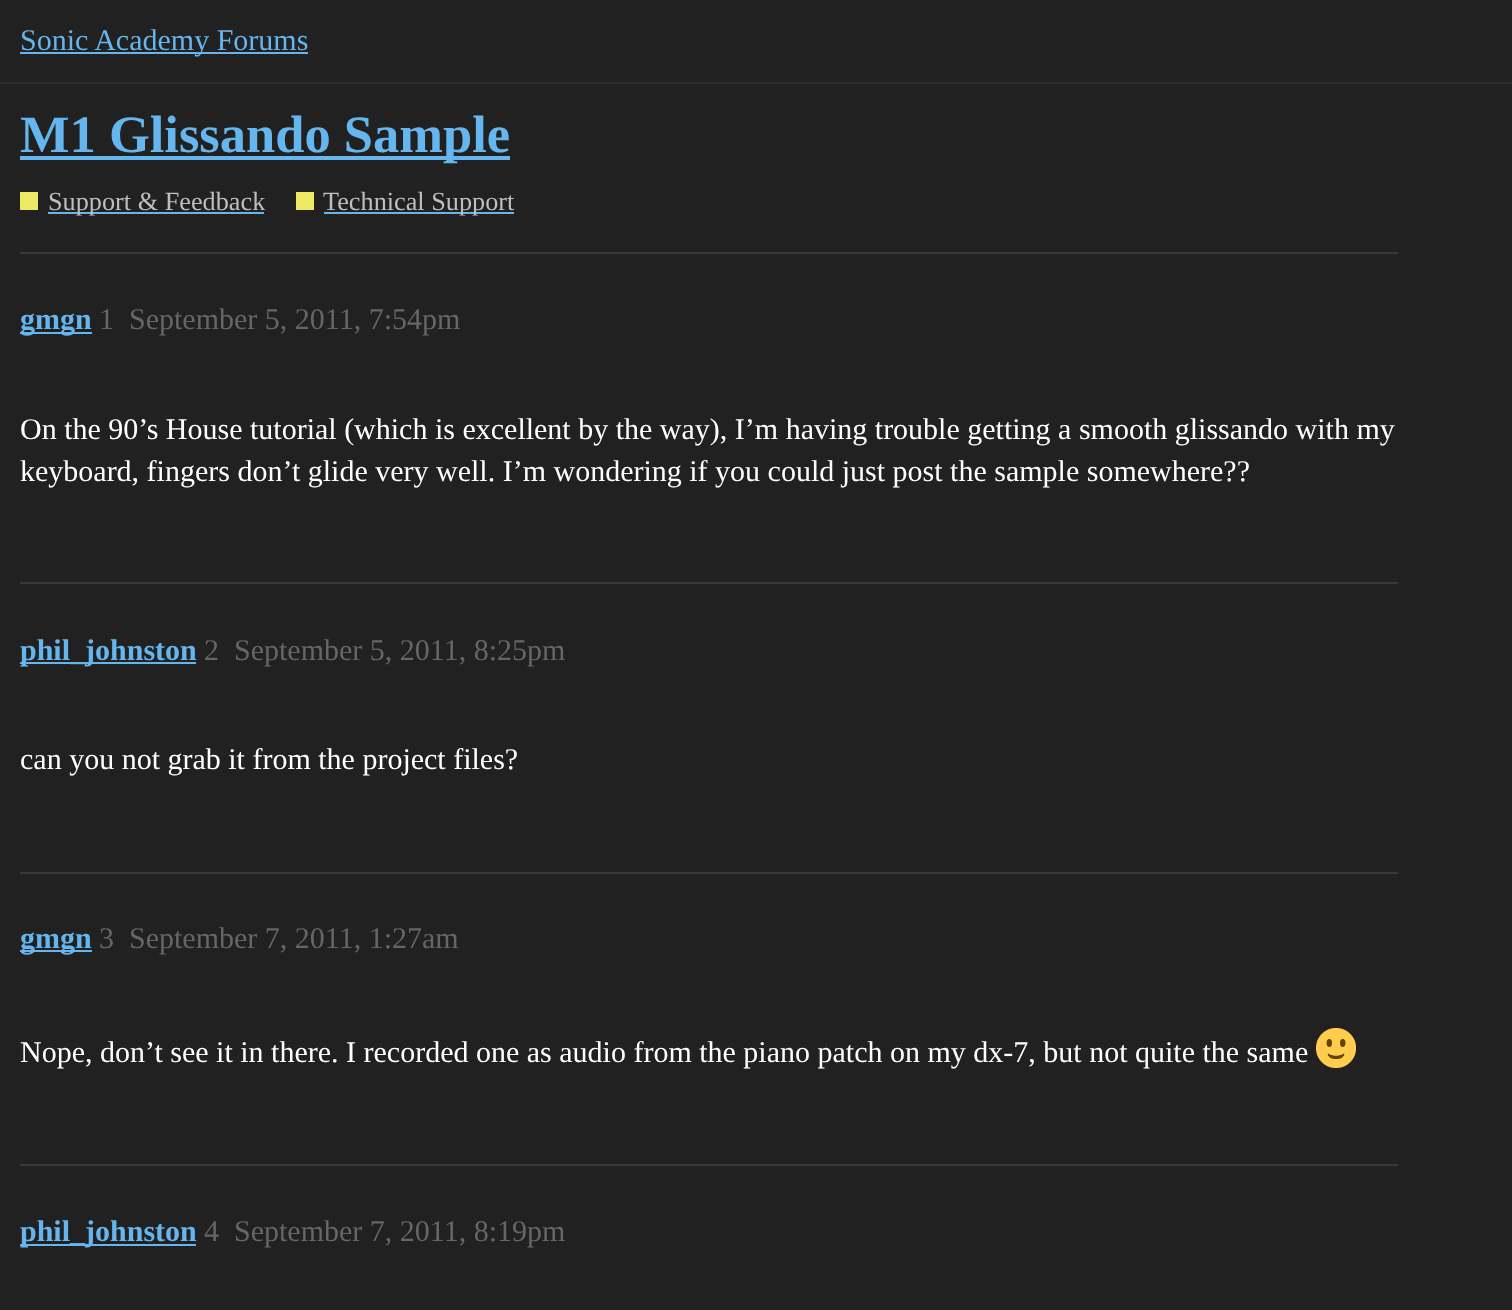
(async () => {
const canvas = document.querySelector("canvas")
canvas.width = 1512
canvas.height = 1310
const c = canvas.getContext("2d")
c.miterLimit = 4
c.fontKerning = "normal"
function T(s,x,y){c.fillText(s,x,y)}
function R(x,y,w,h){c.fillRect(x,y,w,h)}
async function I(src,x,y,w,h){const img=new Image();img.src=src;await img.decode();c.drawImage(img,x,y,w,h)}
c.fillStyle="#212121"
R(0,0,1512,1310)
c.fillStyle="#2c2c2c"
R(0,82,1512,2)
c.fillStyle="#65b6ee"
R(20,52,288,2)
c.font="30px Liberation Serif"
T("Sonic Academy Forums",20,50)
R(20,156,490,4)
c.font="bold 52.5px Liberation Serif"
T("M1 Glissando Sample",20,152)
c.fillStyle="#eee965"
R(20,192,18,18)
c.fillStyle="#65b6ee"
R(48,212,216,2)
c.font="26.25px Liberation Serif"
c.fillStyle="#bfbfbf"
T("Support & Feedback",48,210)
c.fillStyle="#eee965"
R(296,192,18,18)
c.fillStyle="#65b6ee"
R(324,212,190,2)
c.fillStyle="#bfbfbf"
T("Technical Support",323,210)
c.fillStyle="#383838"
R(20,252,1378,2)
c.fillStyle="#65b6ee"
R(20,332,72,2)
c.font="bold 30px Liberation Serif"
T("gmgn",20,329)
c.font="30px Liberation Serif"
c.fillStyle="#666"
T("1",99,329)
T("September 5, 2011, 7:54pm",129,329)
c.fillStyle="#fff"
T("On the 90’s House tutorial (which is excellent by the way), I’m having trouble getting a smooth glissando with my",20,439)
T("keyboard, fingers don’t glide very well. I’m wondering if you could just post the sample somewhere??",20,481)
c.fillStyle="#383838"
R(20,582,1378,2)
c.fillStyle="#65b6ee"
R(20,662,176,2)
c.font="bold 30px Liberation Serif"
T("phil_johnston",20,660)
c.font="30px Liberation Serif"
c.fillStyle="#666"
T("2",204,660)
T("September 5, 2011, 8:25pm",234,660)
c.fillStyle="#fff"
T("can you not grab it from the project files?",20,769)
c.fillStyle="#383838"
R(20,872,1378,2)
c.fillStyle="#65b6ee"
R(20,950,72,2)
c.font="bold 30px Liberation Serif"
T("gmgn",20,948)
c.font="30px Liberation Serif"
c.fillStyle="#666"
T("3",99,948)
T("September 7, 2011, 1:27am",129,948)
c.fillStyle="#fff"
T("Nope, don’t see it in there. I recorded one as audio from the piano patch on my dx-7, but not quite the same",20,1062)
await I("1.png",1316,1028,40,40)
c.fillStyle="#383838"
R(20,1164,1378,2)
c.fillStyle="#65b6ee"
R(20,1244,176,2)
c.font="bold 30px Liberation Serif"
T("phil_johnston",20,1241)
c.font="30px Liberation Serif"
c.fillStyle="#666"
T("4",204,1241)
T("September 7, 2011, 8:19pm",234,1241)
})()
